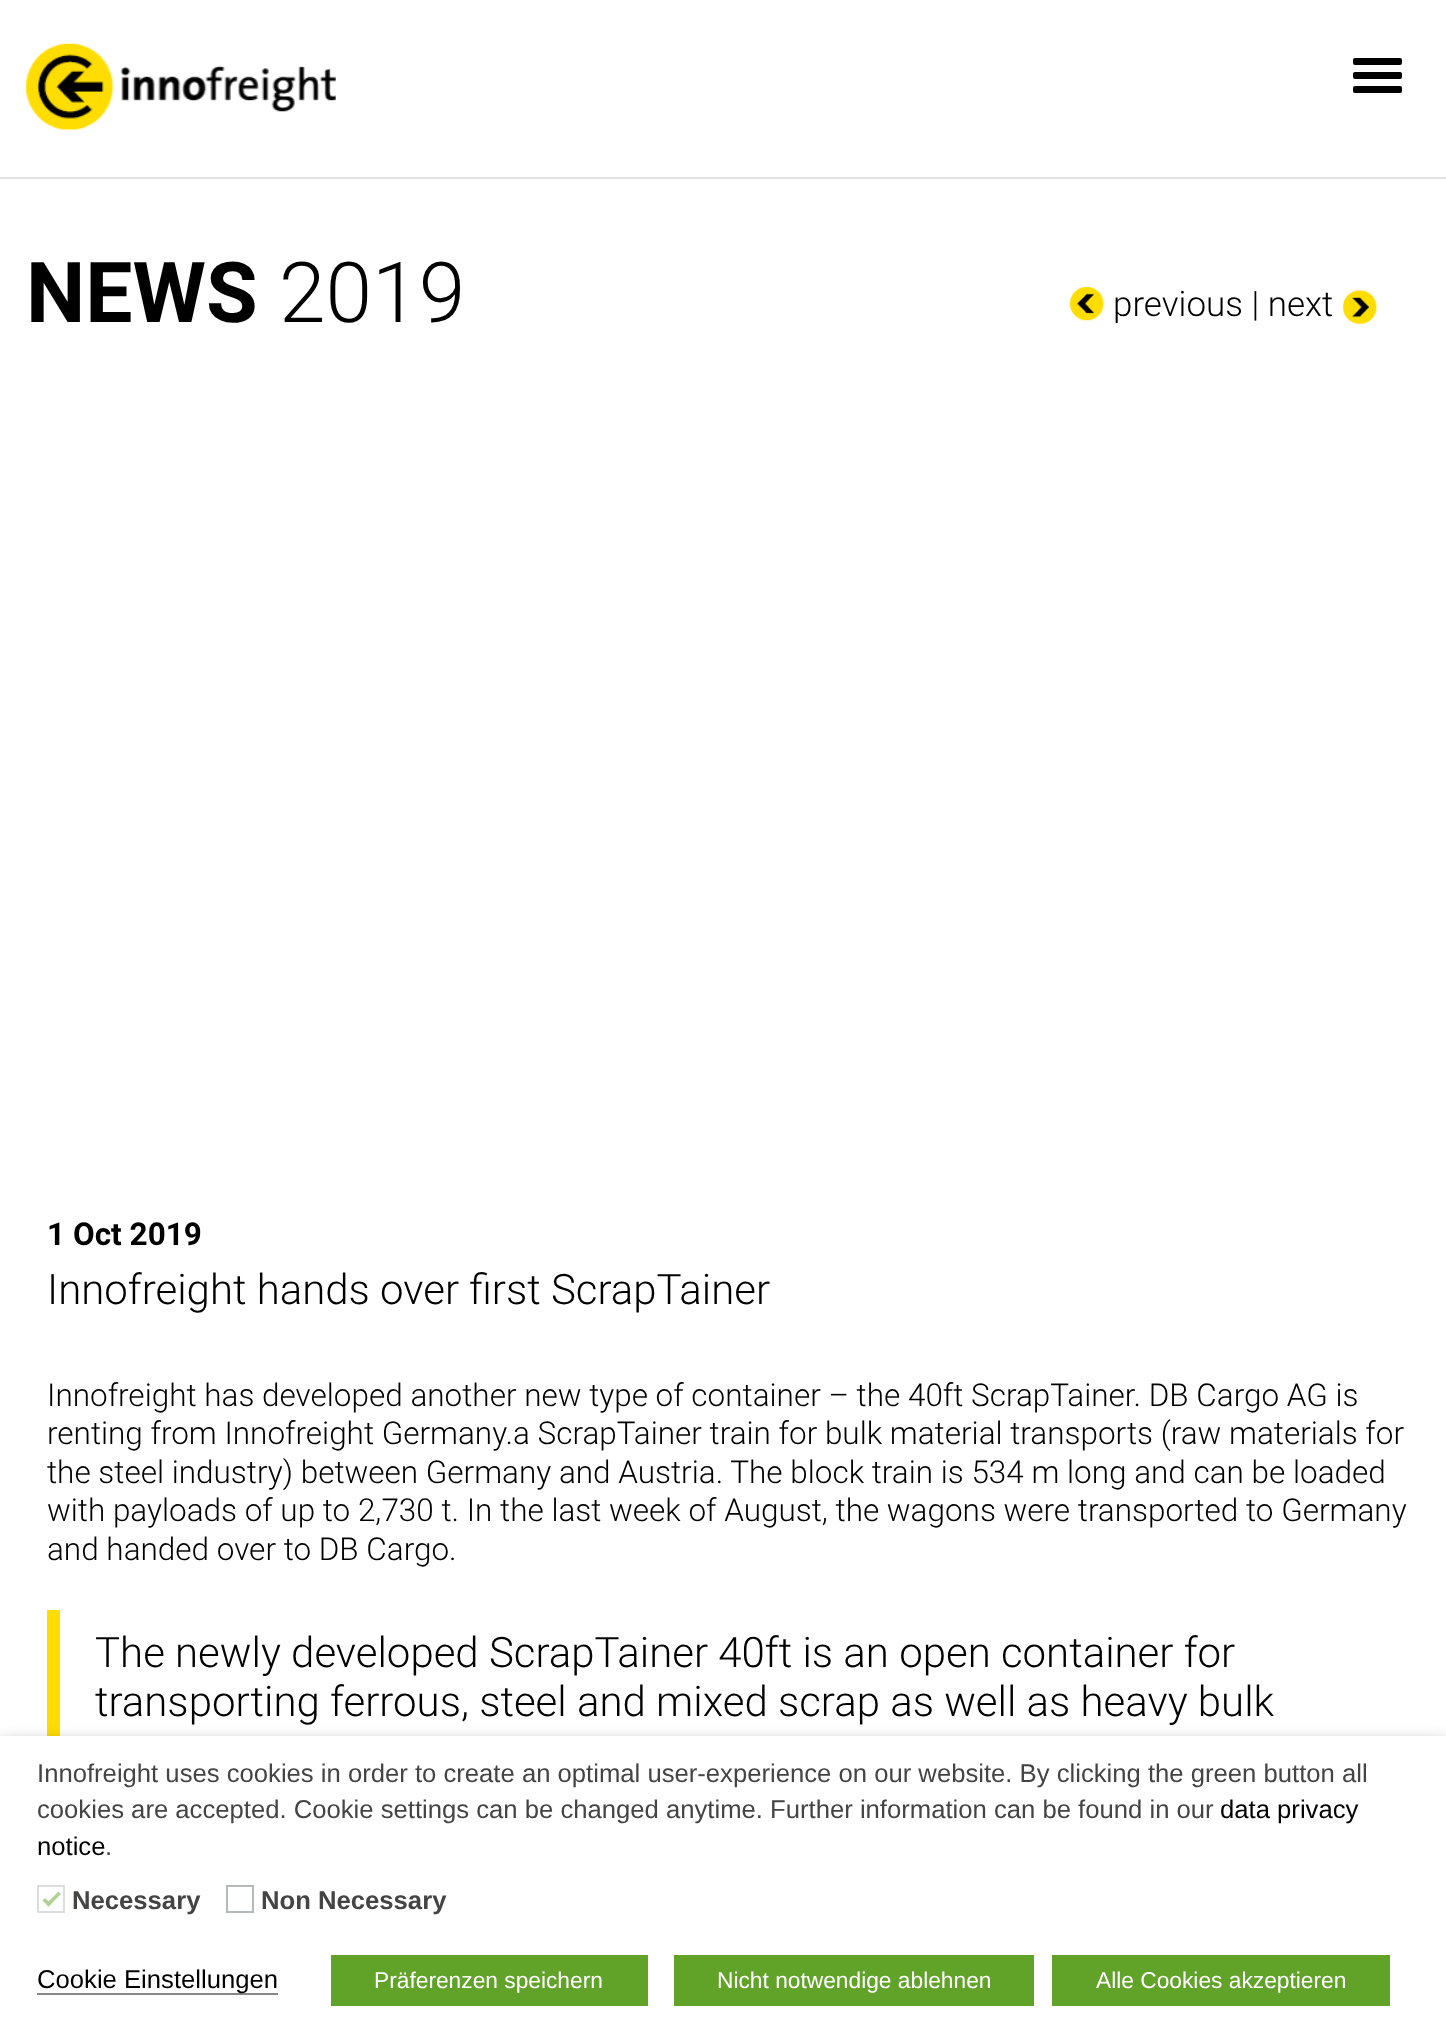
(async () => {
const canvas = document.querySelector("canvas")
canvas.width = 1446
canvas.height = 2032
const c = canvas.getContext("2d")
c.miterLimit = 4
c.fontKerning = "normal"
function T(s,x,y){c.fillText(s,x,y)}
function R(x,y,w,h){c.fillRect(x,y,w,h)}
function Q(x,y,w,h,r){c.beginPath();c.roundRect(x,y,w,h,r);c.fill()}
async function I(src,x,y,w,h){const img=new Image();img.src=src;await img.decode();c.drawImage(img,x,y,w,h)}
let path
c.fillStyle="#fff"
R(0,0,1446,2032)
c.fillStyle="#e3e2e1"
R(0,177,1446,2)
await I("1.png",26,43,310,87)
c.fillStyle="#000"
Q(1353,58,49,7,2)
Q(1353,72,49,7,2)
Q(1353,86,49,7,2)
c.font="bold 84px Roboto"
T("NEWS",26,322)
c.font="300 84px Roboto"
T("2019",279,322)
await I("2.png",1070,287,34,34)
c.font="300 35px Roboto"
T("previous | next",1113,316)
await I("3.png",1343,290,34,34)
c.font="bold 31.5px Roboto"
T("1 Oct 2019",47,1245)
c.font="300 42px Roboto"
T("Innofreight hands over first ScrapTainer",47,1304)
c.font="300 31.5px Roboto"
T("Innofreight has developed another new type of container – the 40ft ScrapTainer. DB Cargo AG is",47,1406)
T("renting from Innofreight Germany.a ScrapTainer train for bulk material transports (raw materials for",47,1444)
T("the steel industry) between Germany and Austria. The block train is 534 m long and can be loaded",47,1483)
T("with payloads of up to 2,730 t. In the last week of August, the wagons were transported to Germany",47,1521)
T("and handed over to DB Cargo.",47,1560)
c.fillStyle="#fd0"
R(47,1610,13,126)
c.font="300 42px Roboto"
c.fillStyle="#000"
T("The newly developed ScrapTainer 40ft is an open container for",95,1667)
T("transporting ferrous, steel and mixed scrap as well as heavy bulk",95,1716)
c.fillStyle="#00000080"
c.filter="blur(9px)"
c.beginPath()
c.rect(0,1745,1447,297)
c.fill()
c.filter="none"
c.fillStyle="#fff"
R(0,1736,1446,296)
c.font="25.67px Liberation Sans"
c.fillStyle="#444"
T("Innofreight uses cookies in order to create an optimal user-experience on our website. By clicking the green button all",37,1782)
T("cookies are accepted. Cookie settings can be changed anytime. Further information can be found in our",37,1818)
c.fillStyle="#000"
T("data privacy",1220,1818)
T("notice",37,1855)
c.fillStyle="#444"
T(".",105,1855)
c.strokeStyle="#dadcdf"
c.lineWidth=2
c.strokeRect(38,1886,26,26)
c.fillStyle="#b0d194"
path = new Path2D("M58.5 1891.5l2.5 2.5l-12.5 12.5l-2.5-2.5z")
c.fill(path)
path = new Path2D("M45 1898l6 6l-2.5 2.5l-6-6z")
c.fill(path)
c.font="bold 25.67px Liberation Sans"
c.fillStyle="#444"
T("Necessary",72,1909)
c.strokeStyle="#b4b9be"
c.strokeRect(227,1886,26,26)
T("Non Necessary",261,1909)
c.fillStyle="#898888"
R(37,1993,241,2)
c.font="25.67px Liberation Sans"
c.fillStyle="#000"
T("Cookie Einstellungen",37,1988)
c.fillStyle="#61a229"
R(331,1955,317,51)
c.font="22.75px Liberation Sans"
c.fillStyle="#fff"
T("Präferenzen speichern",374,1988)
c.fillStyle="#61a229"
R(674,1955,360,51)
c.fillStyle="#fff"
T("Nicht notwendige ablehnen",717,1988)
c.fillStyle="#61a229"
R(1052,1955,338,51)
c.fillStyle="#fff"
T("Alle Cookies akzeptieren",1096,1988)
})()
